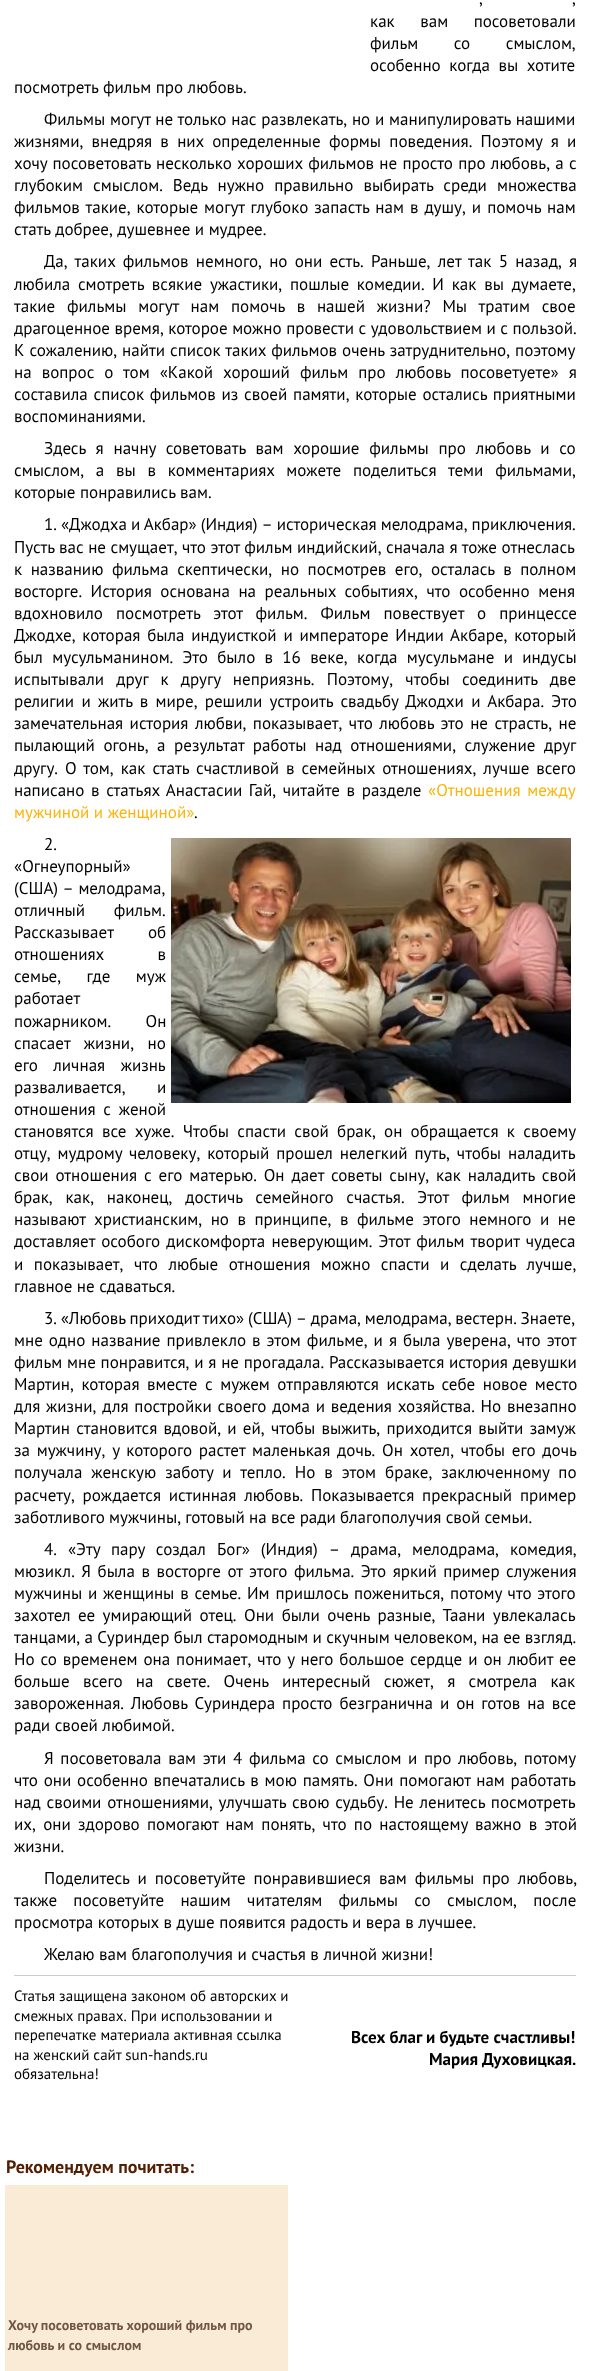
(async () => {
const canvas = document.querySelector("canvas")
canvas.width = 590
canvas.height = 2371
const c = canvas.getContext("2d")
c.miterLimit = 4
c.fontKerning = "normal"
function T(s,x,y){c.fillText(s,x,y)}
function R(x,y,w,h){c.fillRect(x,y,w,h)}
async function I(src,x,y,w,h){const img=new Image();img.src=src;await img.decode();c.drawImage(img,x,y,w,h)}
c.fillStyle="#fff"
R(0,0,590,2371)
c.wordSpacing="3.5px"
c.font="17px PT Sans"
c.fillStyle="#000"
T(",",479,4)
T(",",572,4)
c.wordSpacing="21px"
T("как вам посоветовали",370,27)
c.wordSpacing="31px"
T("фильм со смыслом,",370,49)
c.wordSpacing="4px"
T("особенно когда вы хотите",370,71)
c.wordSpacing="0px"
T("посмотреть фильм про любовь.",14,93)
c.wordSpacing="0.25px"
T("Фильмы могут не только нас развлекать, но и манипулировать нашими",44,125)
c.wordSpacing="3.75px"
T("жизнями, внедряя в них определенные формы поведения. Поэтому я и",14,147)
c.wordSpacing="0.75px"
T("хочу посоветовать несколько хороших фильмов не просто про любовь, а с",14,169)
c.wordSpacing="5.5px"
T("глубоким смыслом. Ведь нужно правильно выбирать среди множества",14,191)
c.wordSpacing="1.5px"
T("фильмов такие, которые могут глубоко запасть нам в душу, и помочь нам",14,213)
c.wordSpacing="0px"
T("стать добрее, душевнее и мудрее.",14,235)
c.wordSpacing="2.75px"
T("Да, таких фильмов немного, но они есть. Раньше, лет так 5 назад, я",44,267)
c.wordSpacing="3.25px"
T("любила смотреть всякие ужастики, пошлые комедии. И как вы думаете,",14,290)
c.wordSpacing="7.25px"
T("такие фильмы могут нам помочь в нашей жизни? Мы тратим свое",14,312)
c.wordSpacing="0px"
T("драгоценное время, которое можно провести с удовольствием и с пользой.",14,334)
c.wordSpacing="0.5px"
T("К сожалению, найти список таких фильмов очень затруднительно, поэтому",14,356)
c.wordSpacing="5.5px"
T("на вопрос о том «Какой хороший фильм про любовь посоветуете» я",14,378)
c.wordSpacing="1.25px"
T("составила список фильмов из своей памяти, которые остались приятными",14,400)
c.wordSpacing="0px"
T("воспоминаниями.",14,422)
c.wordSpacing="5.25px"
T("Здесь я начну советовать вам хорошие фильмы про любовь и со",44,454)
c.wordSpacing="7.25px"
T("смыслом, а вы в комментариях можете поделиться теми фильмами,",14,476)
c.wordSpacing="0px"
T("которые понравились вам.",14,498)
c.wordSpacing="-0.5px"
T("1. «Джодха и Акбар» (Индия) – историческая мелодрама, приключения.",44,530)
c.wordSpacing="0px"
T("Пусть вас не смущает, что этот фильм индийский, сначала я тоже отнеслась",14,553)
c.wordSpacing="4px"
T("к названию фильма скептически, но посмотрев его, осталась в полном",14,575)
T("восторге. История основана на реальных событиях, что особенно меня",14,597)
c.wordSpacing="8.5px"
T("вдохновило посмотреть этот фильм. Фильм повествует о принцессе",14,619)
c.wordSpacing="2.25px"
T("Джодхе, которая была индуисткой и императоре Индии Акбаре, который",14,641)
c.wordSpacing="4.75px"
T("был мусульманином. Это было в 16 веке, когда мусульмане и индусы",14,663)
c.wordSpacing="7.75px"
T("испытывали друг к другу неприязнь. Поэтому, чтобы соединить две",14,685)
c.wordSpacing="2.75px"
T("религии и жить в мире, решили устроить свадьбу Джодхи и Акбара. Это",14,707)
c.wordSpacing="1.9px"
T("замечательная история любви, показывает, что любовь это не страсть, не",14,729)
c.wordSpacing="4px"
T("пылающий огонь, а результат работы над отношениями, служение друг",14,751)
c.wordSpacing="2.5px"
T("другу. О том, как стать счастливой в семейных отношениях, лучше всего",14,774)
c.wordSpacing="2.1px"
T("написано в статьях Анастасии Гай, читайте в разделе",14,796)
c.wordSpacing="2.25px"
c.fillStyle="#fcb40a"
T("«Отношения между",428,796)
c.wordSpacing="0px"
T("мужчиной и женщиной»",14,818)
c.fillStyle="#000"
T(".",194,818)
T("2.",44,850)
await I("1.png",171,838,400,265)
T("«Огнеупорный»",14,872)
T("(США) – мелодрама,",14,894)
c.wordSpacing="24px"
T("отличный фильм.",14,916)
c.wordSpacing="30px"
T("Рассказывает об",14,938)
c.wordSpacing="49px"
T("отношениях в",14,960)
c.wordSpacing="21px"
T("семье, где муж",14,982)
c.wordSpacing="0px"
T("работает",14,1004)
c.wordSpacing="30px"
T("пожарником. Он",14,1027)
c.wordSpacing="9px"
T("спасает жизни, но",14,1049)
c.wordSpacing="11px"
T("его личная жизнь",14,1071)
c.wordSpacing="27px"
T("разваливается, и",14,1093)
c.wordSpacing="3.25px"
T("отношения с женой",14,1115)
c.wordSpacing="3.75px"
T("становятся все хуже. Чтобы спасти свой брак, он обращается к своему",14,1137)
c.wordSpacing="2.4px"
T("отцу, мудрому человеку, который прошел нелегкий путь, чтобы наладить",14,1159)
T("свои отношения с его матерью. Он дает советы сыну, как наладить свой",14,1181)
c.wordSpacing="8.25px"
T("брак, как, наконец, достичь семейного счастья. Этот фильм многие",14,1203)
c.wordSpacing="4px"
T("называют христианским, но в принципе, в фильме этого немного и не",14,1225)
c.wordSpacing="1.75px"
T("доставляет особого дискомфорта неверующим. Этот фильм творит чудеса",14,1247)
c.wordSpacing="6px"
T("и показывает, что любые отношения можно спасти и сделать лучше,",14,1270)
c.wordSpacing="0px"
T("главное не сдаваться.",14,1292)
c.wordSpacing="-0.75px"
T("3. «Любовь приходит тихо» (США) – драма, мелодрама, вестерн. Знаете,",44,1324)
c.wordSpacing="1.5px"
T("мне одно название привлекло в этом фильме, и я была уверена, что этот",14,1346)
c.wordSpacing="0.25px"
T("фильм мне понравится, и я не прогадала. Рассказывается история девушки",14,1368)
c.wordSpacing="3px"
T("Мартин, которая вместе с мужем отправляются искать себе новое место",14,1390)
c.wordSpacing="1.25px"
T("для жизни, для постройки своего дома и ведения хозяйства. Но внезапно",14,1412)
c.wordSpacing="1.75px"
T("Мартин становится вдовой, и ей, чтобы выжить, приходится выйти замуж",14,1434)
c.wordSpacing="2.25px"
T("за мужчину, у которого растет маленькая дочь. Он хотел, чтобы его дочь",14,1456)
c.wordSpacing="4.5px"
T("получала женскую заботу и тепло. Но в этом браке, заключенному по",14,1478)
c.wordSpacing="3.25px"
T("расчету, рождается истинная любовь. Показывается прекрасный пример",14,1501)
c.wordSpacing="-0.25px"
T("заботливого мужчины, готовый на все ради благополучия свой семьи.",14,1523)
c.wordSpacing="6.5px"
T("4. «Эту пару создал Бог» (Индия) – драма, мелодрама, комедия,",44,1555)
c.wordSpacing="2px"
T("мюзикл. Я была в восторге от этого фильма. Это яркий пример служения",14,1577)
c.wordSpacing="1.25px"
T("мужчины и женщины в семье. Им пришлось пожениться, потому что этого",14,1599)
c.wordSpacing="3px"
T("захотел ее умирающий отец. Они были очень разные, Таани увлекалась",14,1621)
c.wordSpacing="-0.25px"
T("танцами, а Суриндер был старомодным и скучным человеком, на ее взгляд.",14,1643)
c.wordSpacing="1.4px"
T("Но со временем она понимает, что у него большое сердце и он любит ее",14,1665)
c.wordSpacing="8.75px"
T("больше всего на свете. Очень интересный сюжет, я смотрела как",14,1687)
c.wordSpacing="2.4px"
T("завороженная. Любовь Суриндера просто безгранична и он готов на все",14,1709)
c.wordSpacing="0px"
T("ради своей любимой.",14,1731)
c.wordSpacing="2.1px"
T("Я посоветовала вам эти 4 фильма со смыслом и про любовь, потому",44,1764)
c.wordSpacing="1.25px"
T("что они особенно впечатались в мою память. Они помогают нам работать",14,1786)
T("над своими отношениями, улучшать свою судьбу. Не ленитесь посмотреть",14,1808)
c.wordSpacing="2.75px"
T("их, они здорово помогают нам понять, что по настоящему важно в этой",14,1830)
c.wordSpacing="0px"
T("жизни.",14,1852)
c.wordSpacing="3.5px"
T("Поделитесь и посоветуйте понравившиеся вам фильмы про любовь,",44,1884)
c.wordSpacing="11.75px"
T("также посоветуйте нашим читателям фильмы со смыслом, после",14,1906)
c.wordSpacing="0px"
T("просмотра которых в душе появится радость и вера в лучшее.",14,1928)
T("Желаю вам благополучия и счастья в личной жизни!",44,1960)
c.fillStyle="#ccc"
R(14,1975,562,1)
c.font="15px PT Sans"
c.fillStyle="#000"
T("Статья защищена законом об авторских и",14,2001)
T("смежных правах. При использовании и",14,2021)
T("перепечатке материала активная ссылка",14,2040)
T("на женский сайт sun-hands.ru",14,2060)
T("обязательна!",14,2079)
c.font="bold 17px PT Sans"
T("Всех благ и будьте счастливы!",351,2043)
T("Мария Духовицкая.",429,2065)
c.font="bold 18px PT Sans"
c.fillStyle="#531e01"
T("Рекомендуем почитать:",6,2173)
c.fillStyle="#f9ebd6"
R(5,2185,283,186)
c.font="bold 14px PT Sans"
c.fillStyle="#715648"
T("Хочу посоветовать хороший фильм про",8,2330)
T("любовь и со смыслом",8,2350)
})()
